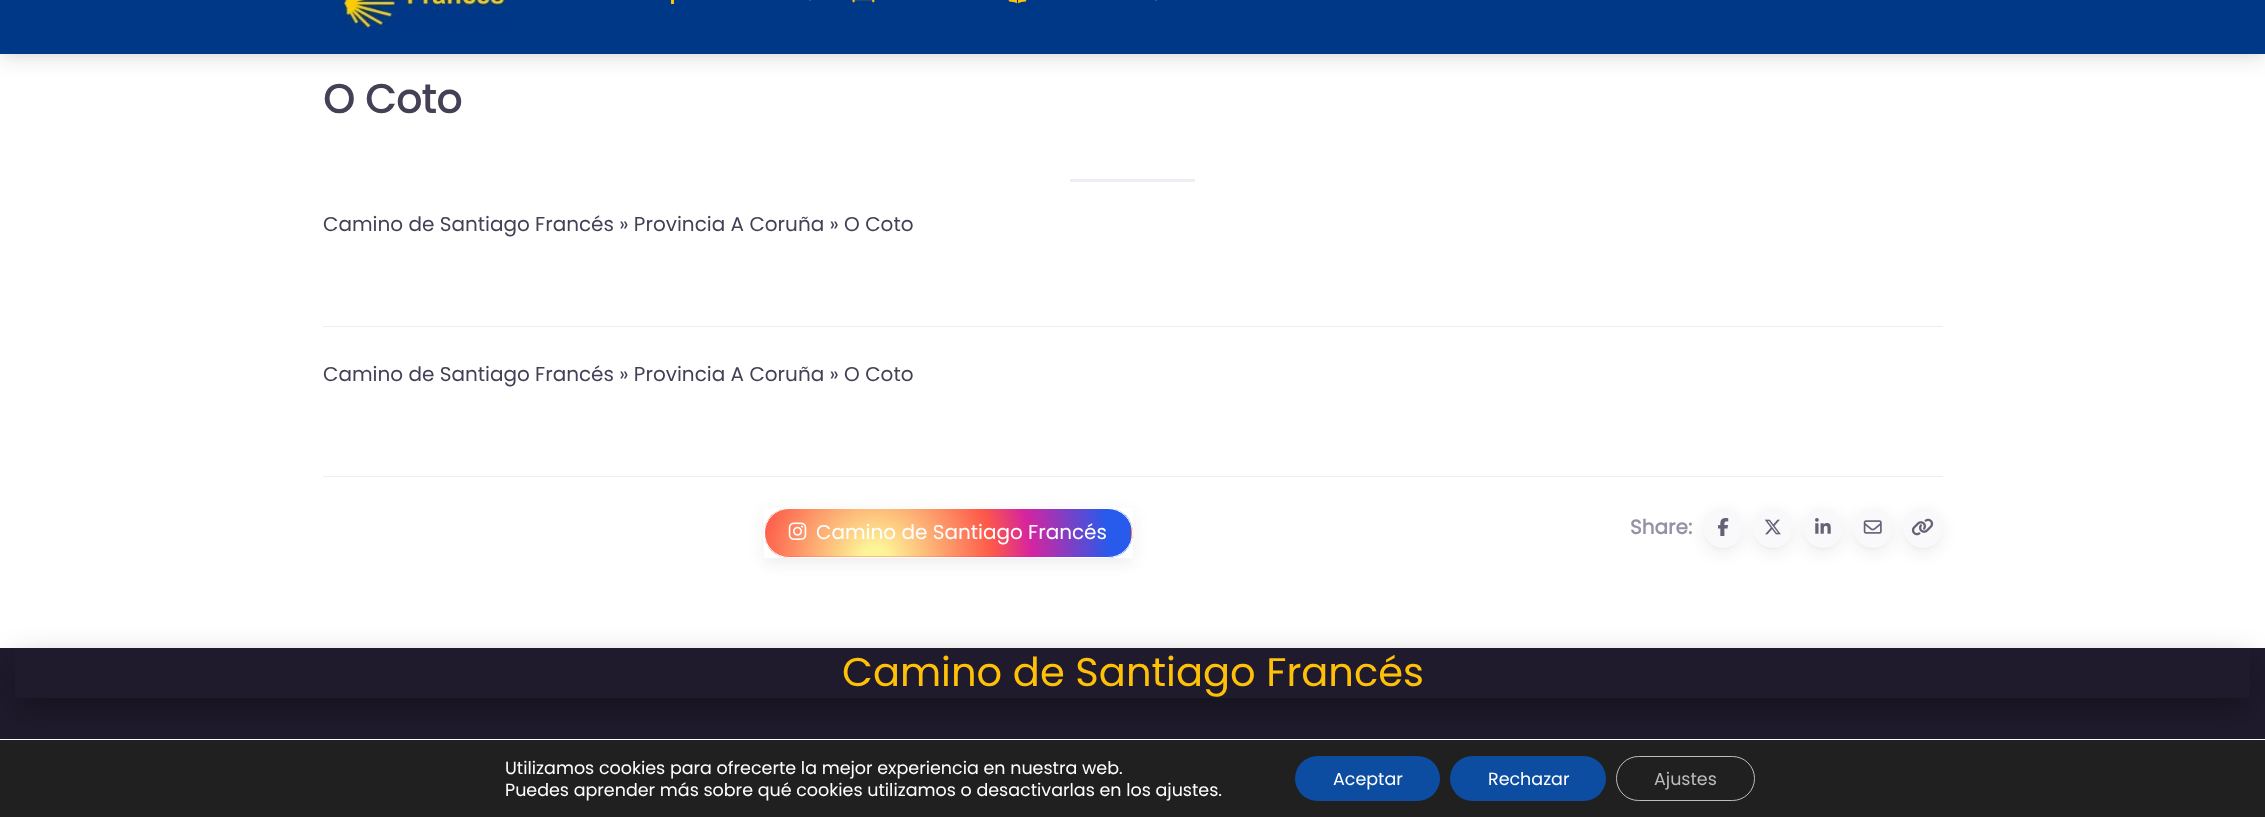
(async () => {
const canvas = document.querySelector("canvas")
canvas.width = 2265
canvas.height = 817
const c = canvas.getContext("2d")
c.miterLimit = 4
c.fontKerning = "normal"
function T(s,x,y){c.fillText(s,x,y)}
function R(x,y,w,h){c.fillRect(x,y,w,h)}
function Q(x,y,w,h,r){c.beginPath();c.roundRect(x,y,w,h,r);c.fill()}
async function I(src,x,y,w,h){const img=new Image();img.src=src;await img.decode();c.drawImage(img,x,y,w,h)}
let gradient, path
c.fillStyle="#fff"
R(0,0,2265,817)
c.fillStyle="#1f1b2d1f"
c.filter="blur(10px)"
c.beginPath()
c.rect(0,-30,2265,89)
c.fill()
c.filter="none"
c.filter="blur(5px)"
c.beginPath()
c.rect(5,-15,2255,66)
c.fill()
c.filter="none"
c.fillStyle="#003888"
R(0,0,2265,54)
await I("1.png",335,0,175,29)
c.fillStyle="#ffc107"
R(671,0,3,4)
await I("2.png",809,0,2,1)
await I("3.png",852,0,23,3)
await I("4.png",1008,0,19,4)
await I("5.png",1155,0,2,1)
c.font="bold 40px Poppins"
c.fillStyle="#454056"
T("O Coto",323,113)
c.fillStyle="#efecf3"
R(1070,179,125,3)
c.font="20px Poppins"
c.fillStyle="#454056"
T("Camino de Santiago Francés » Provincia A Coruña » O Coto",323,231)
c.fillStyle="#efecf3"
R(323,326,1620,1)
c.fillStyle="#454056"
T("Camino de Santiago Francés » Provincia A Coruña » O Coto",323,381)
c.fillStyle="#efecf3"
R(323,476,1620,1)
c.save()
path = new Path2D("M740 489h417v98h-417zm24 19h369v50h-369z")
c.clip(path,"evenodd")
c.fillStyle="#1f1b2d14"
c.filter="blur(7.5px)"
c.beginPath()
c.rect(764,513,369,50)
c.fill()
c.filter="none"
c.restore()
c.save()
c.beginPath()
c.roundRect(764,508,369,50,25)
c.clip()
gradient = c.createRadialGradient(875,560,0,875,560,261)
gradient.addColorStop(0,"#fdf497")
gradient.addColorStop(.05,"#fdf497")
gradient.addColorStop(.45,"#fd5949")
gradient.addColorStop(.6,"#d6249f")
gradient.addColorStop(.9,"#285aeb")
c.fillStyle = gradient
R(765,509,366,47)
gradient = c.createRadialGradient(1241,560,0,1241,560,261)
gradient.addColorStop(0,"#fdf497")
gradient.addColorStop(.05,"#fdf497")
gradient.addColorStop(.45,"#fd5949")
gradient.addColorStop(.6,"#d6249f")
gradient.addColorStop(.9,"#285aeb")
c.fillStyle = gradient
R(1131,523,2,20)
gradient = c.createRadialGradient(875,607,0,875,607,261)
gradient.addColorStop(0,"#fdf497")
gradient.addColorStop(.05,"#fdf497")
gradient.addColorStop(.45,"#fd5949")
gradient.addColorStop(.6,"#d6249f")
gradient.addColorStop(.9,"#285aeb")
c.fillStyle = gradient
R(779,556,339,2)
c.restore()
c.beginPath()
c.roundRect(764.5,508.5,368,49,24.5)
c.strokeStyle="#fff"
c.stroke()
await I("6.png",788,522,19,18)
c.fillStyle="#fff"
T("Camino de Santiago Francés",816,539)
c.font="bold 20px Poppins"
c.fillStyle="#9691a4"
T("Share:",1630,534)
c.fillStyle="#1f1b2d14"
c.filter="blur(7.5px)"
c.beginPath()
c.roundRect(1703,513,40,40,20)
c.fill()
c.filter="none"
c.filter="blur(1px)"
c.beginPath()
c.roundRect(1705,513,35,35,17.5)
c.fill()
c.filter="none"
c.fillStyle="#f9f8fa"
c.beginPath()
c.arc(1723,528,20,0,7)
c.fill()
await I("7.png",1718,518,11,18)
c.fillStyle="#1f1b2d14"
c.filter="blur(7.5px)"
c.beginPath()
c.roundRect(1753,513,40,40,20)
c.fill()
c.filter="none"
c.filter="blur(1px)"
c.beginPath()
c.roundRect(1755,513,35,35,17.5)
c.fill()
c.filter="none"
c.fillStyle="#f9f8fa"
c.beginPath()
c.arc(1773,528,20,0,7)
c.fill()
await I("8.png",1764,519,17,16)
c.fillStyle="#1f1b2d14"
c.filter="blur(7.5px)"
c.beginPath()
c.roundRect(1803,513,40,40,20)
c.fill()
c.filter="none"
c.filter="blur(1px)"
c.beginPath()
c.roundRect(1805,513,35,35,17.5)
c.fill()
c.filter="none"
c.fillStyle="#f9f8fa"
c.beginPath()
c.arc(1823,528,20,0,7)
c.fill()
await I("9.png",1815,518,16,16)
c.fillStyle="#1f1b2d14"
c.filter="blur(7.5px)"
c.beginPath()
c.roundRect(1853,513,40,40,20)
c.fill()
c.filter="none"
c.filter="blur(1px)"
c.beginPath()
c.roundRect(1855,513,35,35,17.5)
c.fill()
c.filter="none"
c.fillStyle="#f9f8fa"
c.beginPath()
c.arc(1873,528,20,0,7)
c.fill()
await I("10.png",1863,520,19,14)
c.fillStyle="#1f1b2d14"
c.filter="blur(7.5px)"
c.beginPath()
c.roundRect(1903,513,40,40,20)
c.fill()
c.filter="none"
c.filter="blur(1px)"
c.beginPath()
c.roundRect(1905,513,35,35,17.5)
c.fill()
c.filter="none"
c.fillStyle="#f9f8fa"
c.beginPath()
c.arc(1923,528,20,0,7)
c.fill()
await I("11.png",1911,518,23,18)
c.fillStyle="#1f1b2d"
R(0,648,2265,91)
c.save()
path = new Path2D("M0 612h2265v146h-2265zm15 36h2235v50h-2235z")
c.clip(path,"evenodd")
c.fillStyle="#0000004d"
c.filter="blur(15.5px)"
c.beginPath()
c.rect(15,660,2235,50)
c.fill()
c.filter="none"
c.restore()
c.font="40px Poppins"
c.fillStyle="#ffc107"
T("Camino de Santiago Francés",842,686)
c.fillStyle="#202020"
R(0,740,2265,77)
c.font="17.5px Poppins"
c.fillStyle="#fff"
T("Utilizamos cookies para ofrecerte la mejor experiencia en nuestra web.",505,774)
T("Puedes aprender más sobre qué cookies utilizamos o desactivarlas en los ajustes.",505,796)
c.fillStyle="#0c4da2"
Q(1295,756,145,45,22.5)
c.fillStyle="#fff"
T("Aceptar",1333,785)
c.fillStyle="#0c4da2"
Q(1450,756,156,45,22.5)
c.fillStyle="#fff"
T("Rechazar",1488,785)
c.beginPath()
c.roundRect(1616.5,756.5,138,44,22)
c.strokeStyle="#bcbcbc"
c.stroke()
c.fillStyle="#bcbcbc"
T("Ajustes",1654,785)
})()
